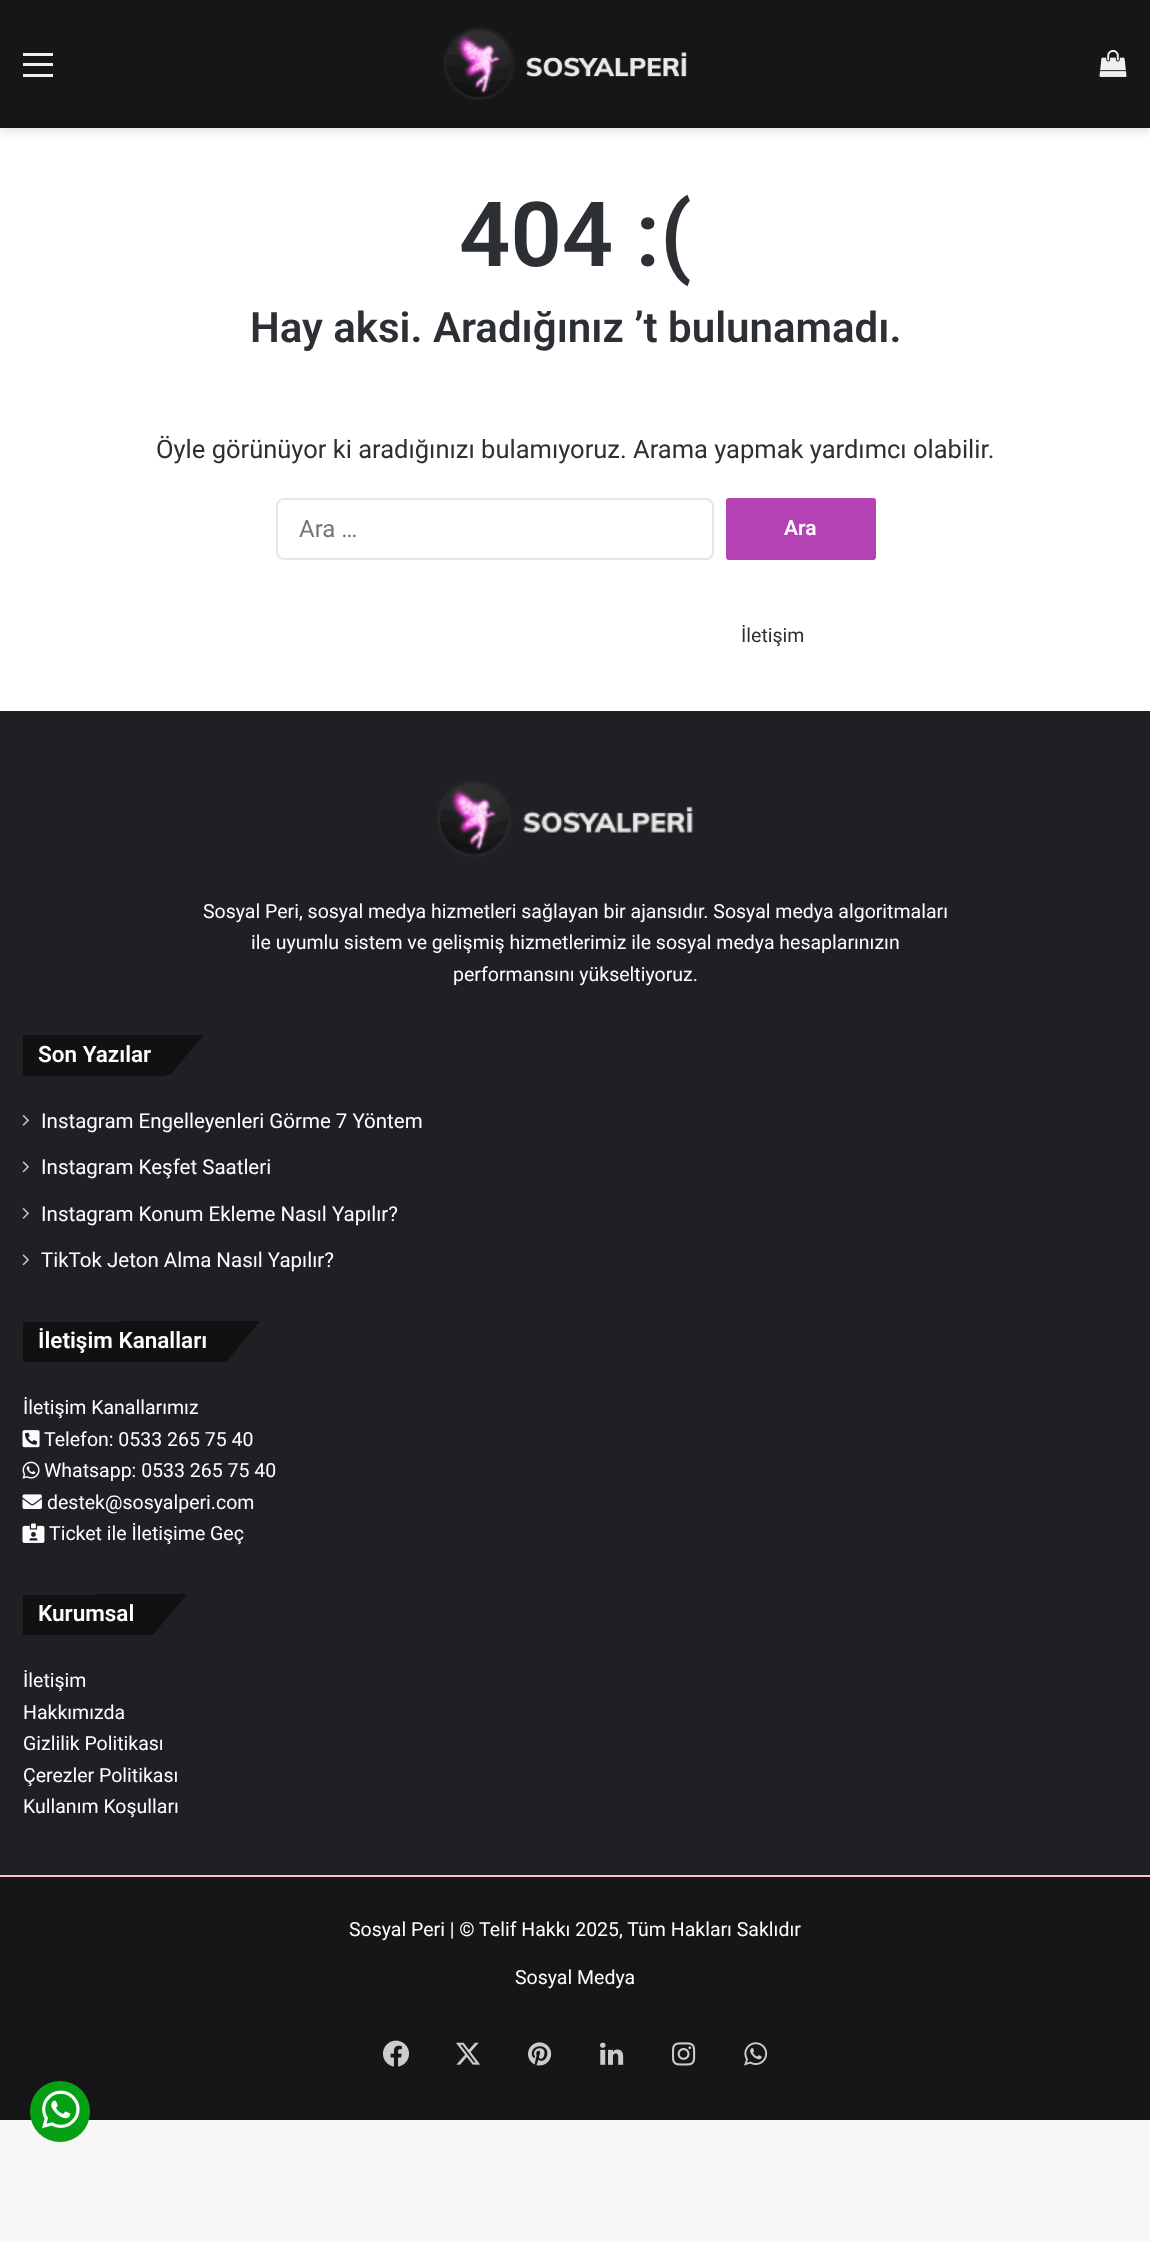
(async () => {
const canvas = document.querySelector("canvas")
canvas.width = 1150
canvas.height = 2242
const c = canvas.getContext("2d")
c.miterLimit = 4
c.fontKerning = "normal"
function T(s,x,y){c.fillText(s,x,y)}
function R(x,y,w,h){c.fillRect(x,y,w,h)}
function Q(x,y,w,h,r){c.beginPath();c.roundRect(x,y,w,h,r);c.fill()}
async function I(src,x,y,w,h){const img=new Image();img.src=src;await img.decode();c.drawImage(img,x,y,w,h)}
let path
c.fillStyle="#f7f7f7"
R(0,0,1150,2242)
c.fillStyle="#fff"
R(0,128,1150,583)
c.fillStyle="#0000001a"
c.filter="blur(5px)"
c.beginPath()
c.rect(0,5,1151,127)
c.fill()
c.filter="none"
c.fillStyle="#161619"
R(0,0,1150,128)
c.fillStyle="#efefef"
R(23,63,30,3)
R(23,53,30,3)
R(23,74,30,3)
await I("1.png",443,27,244,73)
await I("2.png",1099,49,28,28)
c.font="600 90px Roboto"
c.fillStyle="#2c2f34"
T("404 :(",459,266)
c.font="600 42px Roboto"
T("Hay aksi. Aradığınız ’t bulunamadı.",250,342)
c.font="25.5px Roboto"
T("Öyle görünüyor ki aradığınızı bulamıyoruz. Arama yapmak yardımcı olabilir.",156,458)
c.beginPath()
c.roundRect(277,499,436,60,7)
c.strokeStyle="#e6e6e6"
c.lineWidth=2
c.stroke()
c.font="24px Roboto"
c.fillStyle="#757575"
T("Ara …",299,537)
c.fillStyle="#b542b5"
Q(726,498,150,62,3)
c.font="600 21px Roboto"
c.fillStyle="#fff"
T("Ara",784,535)
c.font="19.5px Roboto"
c.fillStyle="#2c2f34"
T("İletişim",741,642)
c.fillStyle="#1f2024"
R(0,711,1150,1164)
await I("3.png",437,781,257,76)
c.fillStyle="#fff"
T("Sosyal Peri, sosyal medya hizmetleri sağlayan bir ajansıdır. Sosyal medya algoritmaları",203,918)
T("ile uyumlu sistem ve gelişmiş hizmetlerimiz ile sosyal medya hesaplarınızın",251,949)
T("performansını yükseltiyoruz.",453,981)
c.fillStyle="#111"
R(23,1035,142,41)
path = new Path2D("M103 1035h101l-34 40h-101z")
c.fill(path)
c.font="600 22.5px Roboto"
c.fillStyle="#fff"
T("Son Yazılar",38,1062)
await I("4.png",22,1114,7,12)
c.font="20.5px Roboto"
T("Instagram Engelleyenleri Görme 7 Yöntem",41,1128)
await I("5.png",22,1161,7,12)
T("Instagram Keşfet Saatleri",41,1174)
await I("4.png",22,1207,7,12)
T("Instagram Konum Ekleme Nasıl Yapılır?",41,1221)
await I("5.png",22,1254,7,12)
T("TikTok Jeton Alma Nasıl Yapılır?",41,1267)
c.fillStyle="#111"
R(23,1322,97,40)
path = new Path2D("M120 1321h140l-34 41h-140z")
c.fill(path)
c.font="600 22.5px Roboto"
c.fillStyle="#fff"
T("İletişim Kanalları",38,1348)
c.font="19.5px Roboto"
T("İletişim Kanallarımız",23,1414)
await I("6.png",22,1430,18,18)
T("Telefon: 0533 265 75 40",44,1446)
await I("7.png",22,1461,18,18)
T("Whatsapp: 0533 265 75 40",44,1477)
await I("8.png",22,1494,20,15)
T("destek@sosyalperi.com",47,1509)
await I("9.png",22,1523,23,20)
T("Ticket ile İletişime Geç",49,1540)
c.fillStyle="#111"
R(23,1595,75,40)
path = new Path2D("M98 1594h89l-34 41h-89z")
c.fill(path)
c.font="600 22.5px Roboto"
c.fillStyle="#fff"
T("Kurumsal",38,1621)
c.font="19.5px Roboto"
T("İletişim",23,1687)
T("Hakkımızda",23,1719)
T("Gizlilik Politikası",23,1750)
T("Çerezler Politikası",23,1782)
T("Kullanım Koşulları",23,1813)
c.fillStyle="#161619"
R(0,1877,1150,243)
c.fillStyle="#ffc0cb"
R(0,1875,1150,2)
c.fillStyle="#fff"
T("Sosyal Peri | © Telif Hakkı 2025, Tüm Hakları Saklıdır",349,1936)
T("Sosyal Medya",515,1984)
await I("10.png",382,2040,28,27)
await I("11.png",456,2042,25,23)
await I("12.png",528,2042,24,24)
await I("13.png",600,2042,24,23)
await I("14.png",672,2042,24,24)
await I("15.png",744,2042,24,24)
c.fillStyle="#06a015"
Q(30,2081,60,61,30)
await I("16.png",42,2090,38,39)
})()
